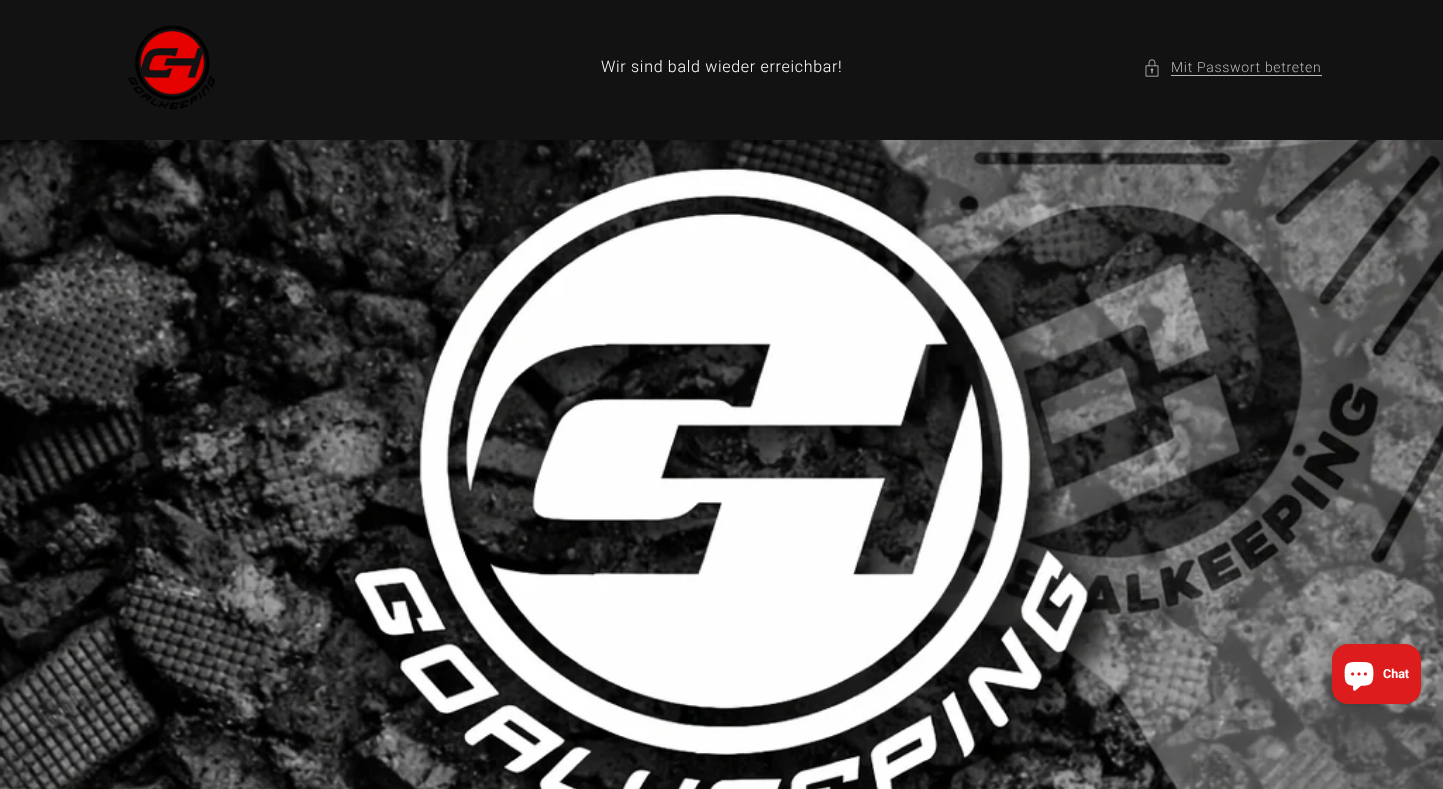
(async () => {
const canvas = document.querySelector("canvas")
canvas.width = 1443
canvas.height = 789
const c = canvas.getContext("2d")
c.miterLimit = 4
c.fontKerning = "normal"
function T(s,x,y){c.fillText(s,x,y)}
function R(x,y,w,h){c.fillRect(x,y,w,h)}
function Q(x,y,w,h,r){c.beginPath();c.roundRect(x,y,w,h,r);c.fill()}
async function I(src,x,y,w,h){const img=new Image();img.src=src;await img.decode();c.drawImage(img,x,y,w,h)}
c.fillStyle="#121212"
R(0,0,1443,789)
await I("1.png",128,25,87,85)
c.letterSpacing="0.7px"
c.font="300 16px Roboto"
c.fillStyle="#fff"
T("Wir sind bald wieder erreichbar!",601,72)
await I("2.png",1145,59,14,18)
c.font="300 14px Roboto"
c.fillStyle="#b8b8b8"
T("Mit Passwort betreten",1171,72)
R(1171,75,151,1)
await I("3.png",0,140,1443,649)
c.fillStyle="#00000026"
c.filter="blur(2.5px)"
c.beginPath()
c.roundRect(1332,644,89,60,16)
c.fill()
c.filter="none"
c.fillStyle="#dd1d1d"
Q(1332,644,89,60,16)
await I("4.png",1344,662,30,29)
c.letterSpacing="0px"
c.font="bold 12.5px Roboto"
c.fillStyle="#fff"
T("Chat",1383,678)
})()
